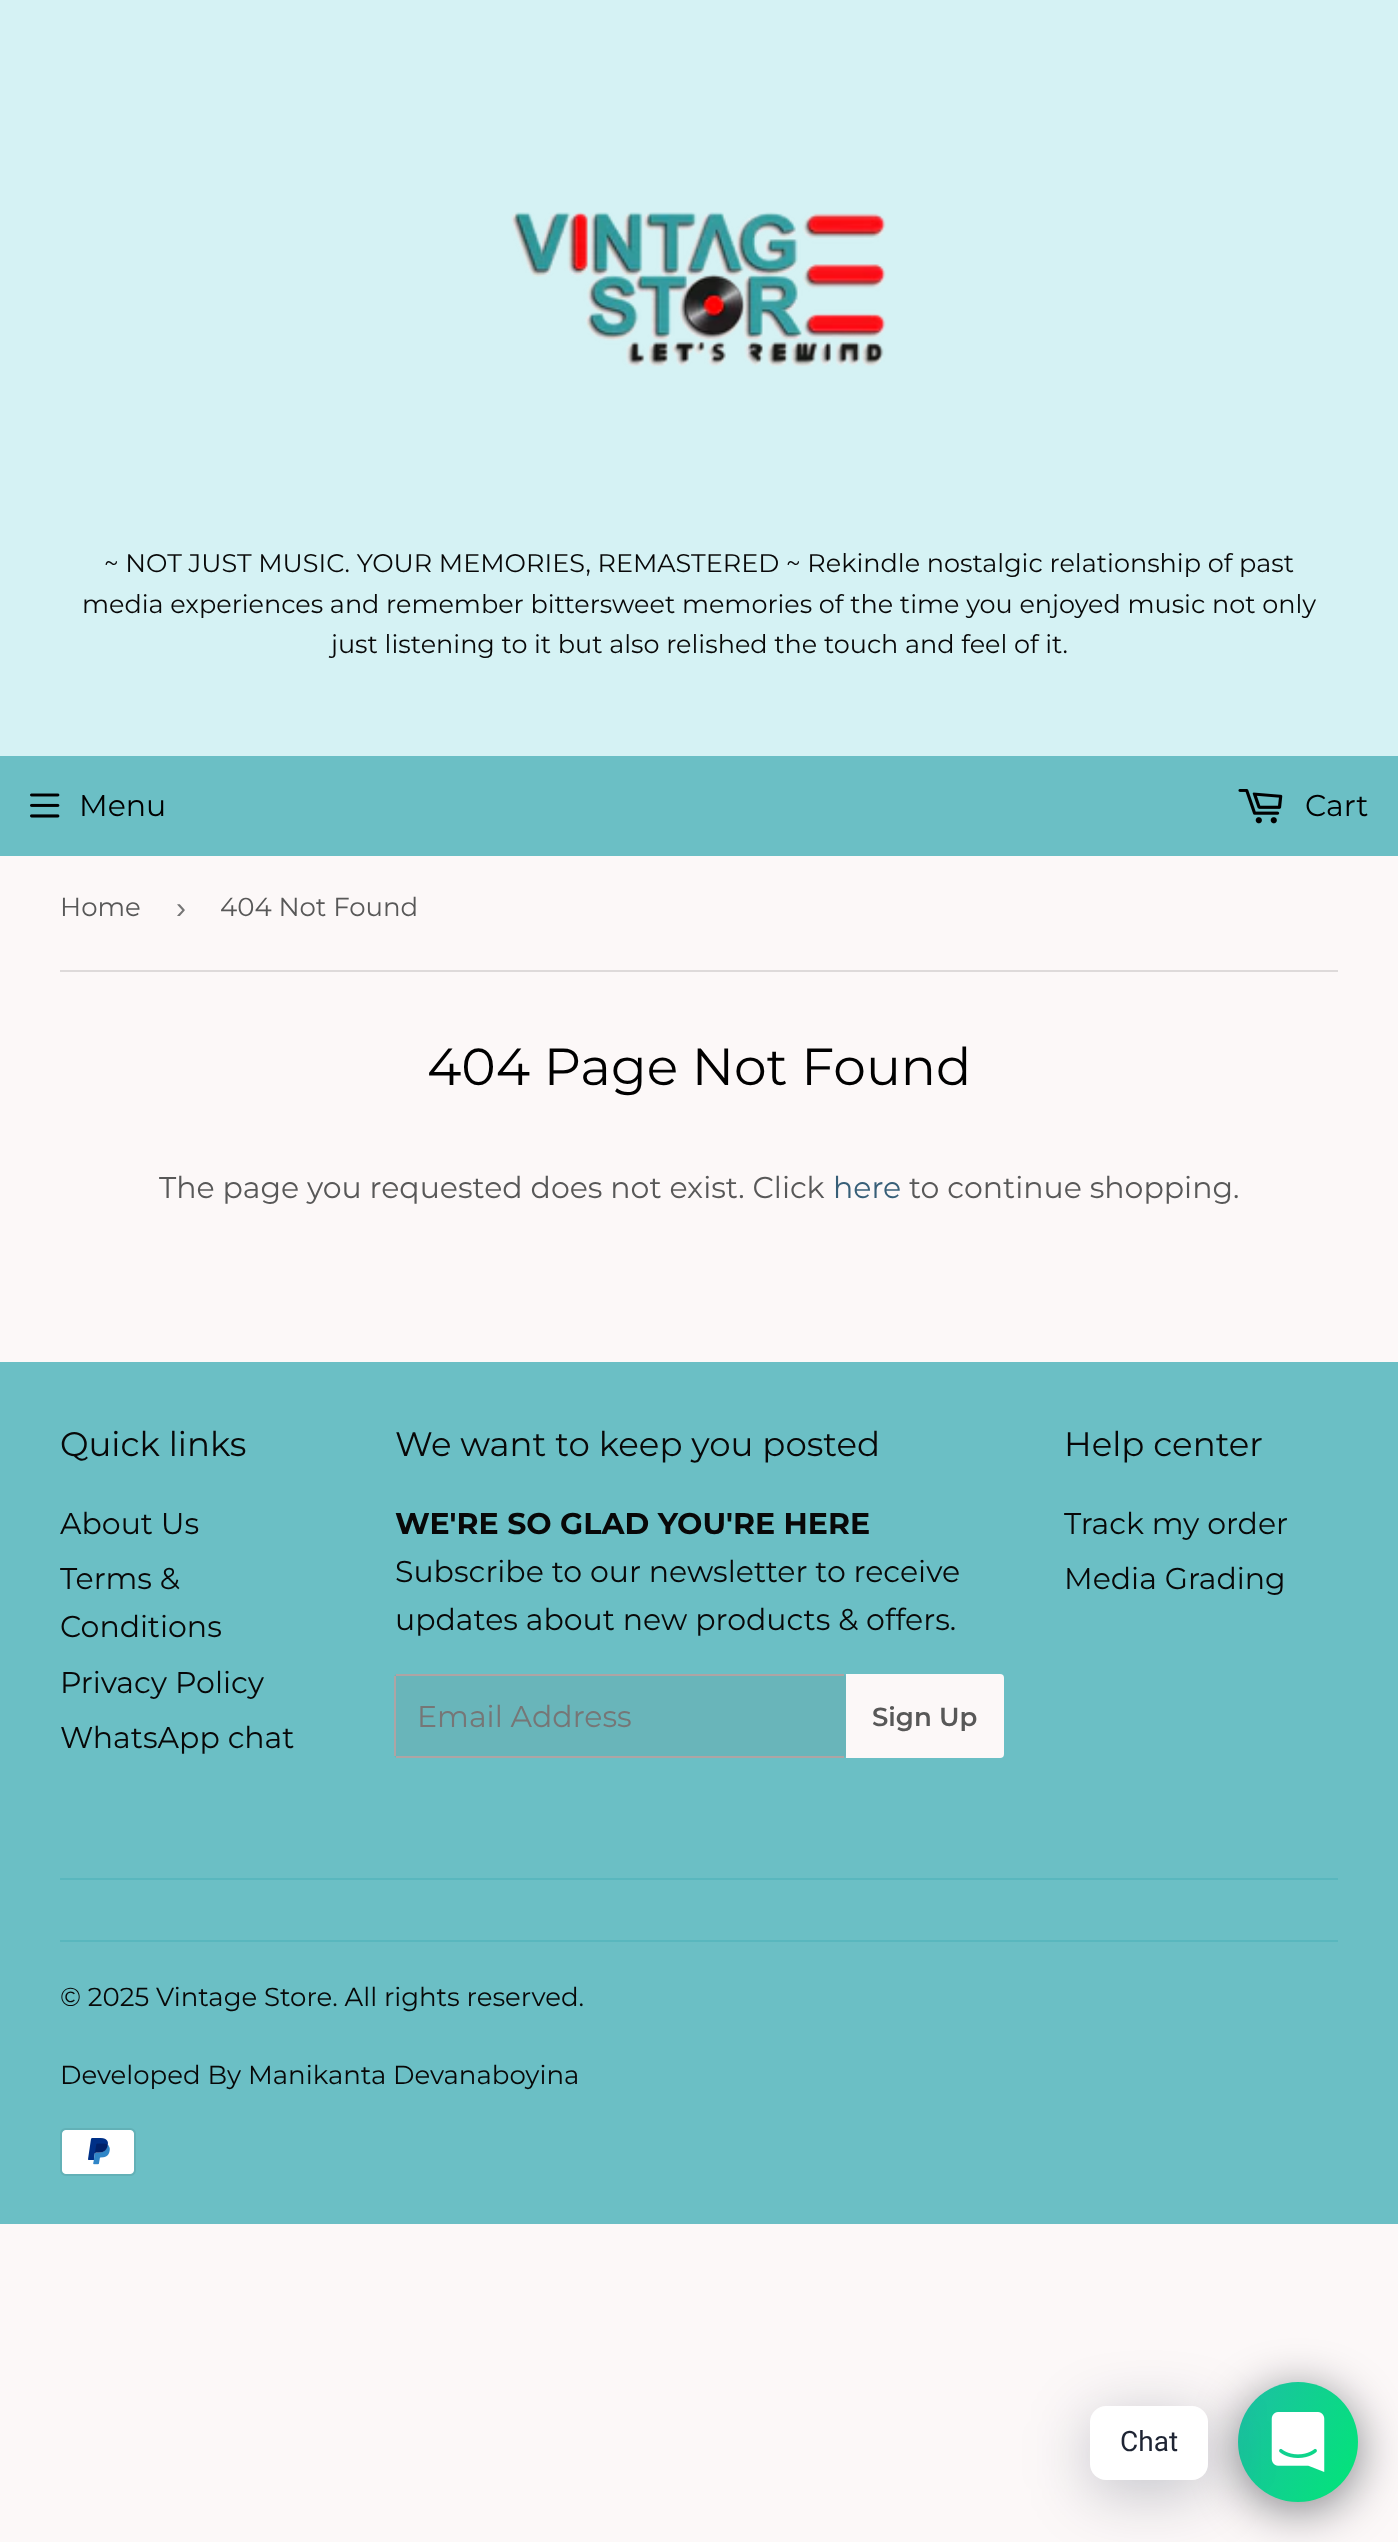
(async () => {
const canvas = document.querySelector("canvas")
canvas.width = 1398
canvas.height = 2542
const c = canvas.getContext("2d")
c.miterLimit = 4
c.fontKerning = "normal"
function T(s,x,y){c.fillText(s,x,y)}
function R(x,y,w,h){c.fillRect(x,y,w,h)}
function Q(x,y,w,h,r){c.beginPath();c.roundRect(x,y,w,h,r);c.fill()}
async function I(src,x,y,w,h){const img=new Image();img.src=src;await img.decode();c.drawImage(img,x,y,w,h)}
let gradient
c.fillStyle="#fcf8f8"
R(0,0,1398,2542)
c.fillStyle="#d5f2f4"
R(0,0,1398,756)
await I("1.png",511,212,375,155)
c.font="25.5px Montserrat"
c.fillStyle="#080808"
T("~ NOT JUST MUSIC. YOUR MEMORIES, REMASTERED ~ Rekindle nostalgic relationship of past",104,572)
T("media experiences and remember bittersweet memories of the time you enjoyed music not only",82,613)
T("just listening to it but also relished the touch and feel of it.",331,653)
c.fillStyle="#6bbfc5"
R(0,756,1398,100)
await I("2.png",30,793,30,25)
c.font="30px Montserrat"
c.fillStyle="#000"
T("Menu",79,816)
await I("3.png",1238,789,45,35)
T("Cart",1305,816)
c.fillStyle="#dedada"
R(60,970,1278,2)
c.font="26px Montserrat"
c.fillStyle="#585858"
T("Home",60,916)
c.font="30px Liberation Sans"
c.fillStyle="#767676"
T("›",176,918)
c.font="26px Montserrat"
c.fillStyle="#585858"
T("404 Not Found",220,916)
c.font="52px Montserrat"
c.fillStyle="#000"
T("404 Page Not Found",427,1085)
c.font="30px Montserrat"
c.fillStyle="#585858"
T("The page you requested does not exist. Click",159,1198)
c.fillStyle="#375f78"
T("here",833,1198)
c.fillStyle="#585858"
T("to continue shopping.",909,1198)
c.fillStyle="#6bbfc5"
R(0,1362,1398,862)
c.font="34px Montserrat"
c.fillStyle="#080808"
T("Quick links",60,1456)
c.font="30px Montserrat"
T("About Us",60,1534)
T("Terms &",60,1589)
T("Conditions",60,1637)
T("Privacy Policy",60,1693)
T("WhatsApp chat",60,1748)
c.font="34px Montserrat"
T("We want to keep you posted",395,1456)
c.font="bold 30px Montserrat"
T("WE'RE SO GLAD YOU'RE HERE",395,1534)
c.font="30px Montserrat"
T("Subscribe to our newsletter to receive",395,1582)
T("updates about new products & offers.",395,1630)
c.fillStyle="#69b5ba"
Q(394,1674,452,84,4)
c.fillStyle="#aea4a4"
R(396,1674,448,2)
R(396,1756,448,2)
R(394,1676,2,80)
c.fillStyle="#767676"
T("Email Address",417,1727)
c.fillStyle="#fcf8f8"
c.beginPath()
c.roundRect(846,1674,158,84,[0,4,4,0])
c.fill()
c.font="600 26px Montserrat"
c.fillStyle="#585858"
T("Sign Up",872,1726)
c.font="34px Montserrat"
c.fillStyle="#080808"
T("Help center",1064,1456)
c.font="30px Montserrat"
T("Track my order",1064,1534)
T("Media Grading",1064,1589)
c.fillStyle="#59b7be"
R(60,1878,1278,2)
R(60,1940,1278,2)
c.font="26px Montserrat"
c.fillStyle="#080808"
T("© 2025 Vintage Store. All rights reserved.",60,2006)
T("Developed By Manikanta Devanaboyina",60,2084)
await I("4.png",60,2128,76,48)
c.fillStyle="#02061080"
c.filter="blur(24px)"
c.beginPath()
c.roundRect(1238,2390,120,120,60)
c.fill()
c.filter="none"
gradient = c.createLinearGradient(1226,2408,1370,2476)
gradient.addColorStop(0,"#1ebea5")
gradient.addColorStop(1,"#01e677")
c.fillStyle = gradient
c.beginPath()
c.arc(1298,2442,60,0,7)
c.fill()
c.fillStyle="#00122e3d"
c.filter="blur(32px)"
c.beginPath()
c.roundRect(1090,2418,118,74,16)
c.fill()
c.filter="none"
c.fillStyle="#fff"
Q(1090,2406,118,74,16)
c.font="28px Roboto"
c.fillStyle="#1e2433"
T("Chat",1120,2451)
await I("5.png",1271,2412,54,60)
})()
